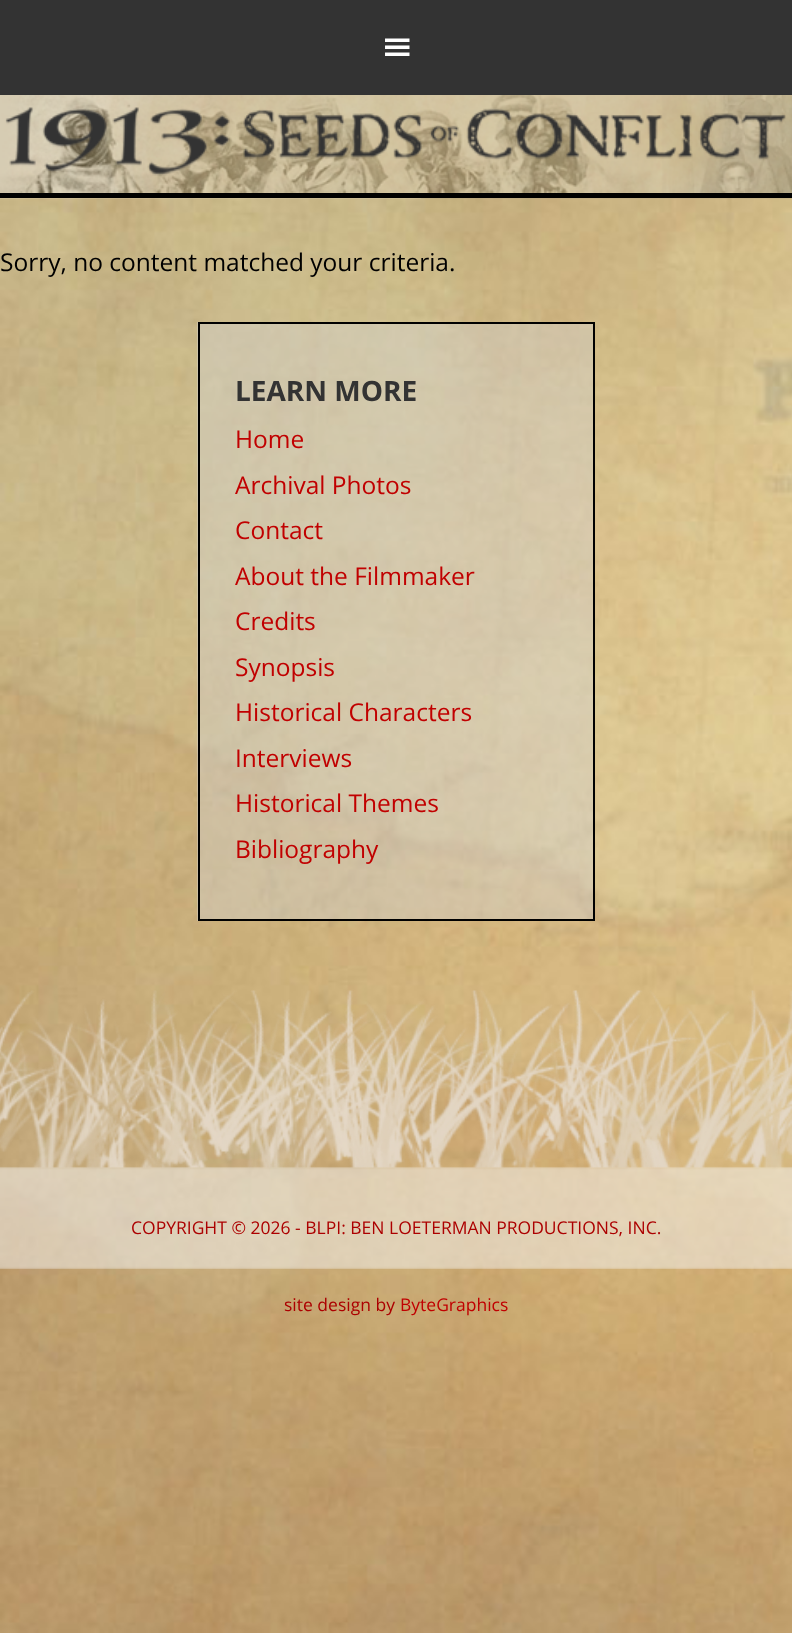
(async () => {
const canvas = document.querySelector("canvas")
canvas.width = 792
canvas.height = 1633
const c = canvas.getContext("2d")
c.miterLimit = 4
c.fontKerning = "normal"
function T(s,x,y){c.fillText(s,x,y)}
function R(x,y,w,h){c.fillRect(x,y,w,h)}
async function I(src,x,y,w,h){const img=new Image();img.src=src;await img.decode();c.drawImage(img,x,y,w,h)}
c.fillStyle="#fff"
R(0,0,792,1633)
await I("1.png",0,198,792,1435)
c.fillStyle="#333"
R(0,0,792,95)
await I("2.png",385,38,25,18)
await I("3.png",0,95,792,104)
c.fillStyle="#000"
R(0,193,792,5)
await I("4.png",0,95,792,98)
await I("5.png",5,107,781,69)
c.font="24.5px Open Sans"
T("Sorry, no content matched your criteria.",0,271)
c.fillStyle="#d4d4d46b"
R(197,322,396,599)
c.strokeStyle="#000"
c.lineWidth=2
c.strokeRect(199,323,395,597)
c.font="bold 28px Open Sans"
c.fillStyle="#333"
T("LEARN MORE",235,401)
c.font="24.5px Open Sans"
c.fillStyle="#c10000"
T("Home",235,448)
T("Archival Photos",235,494)
T("Contact",235,539)
T("About the Filmmaker",235,585)
T("Credits",235,630)
T("Synopsis",235,676)
T("Historical Characters",235,721)
T("Interviews",235,767)
T("Historical Themes",235,812)
T("Bibliography",235,858)
await I("6.png",0,990,792,279)
c.font="17.5px Open Sans"
c.fillStyle="#ac0000"
T("COPYRIGHT © 2026 - BLPI: BEN LOETERMAN PRODUCTIONS, INC.",131,1234)
T("site design by",284,1311)
c.fillStyle="#c10000"
T("ByteGraphics",400,1311)
})()
